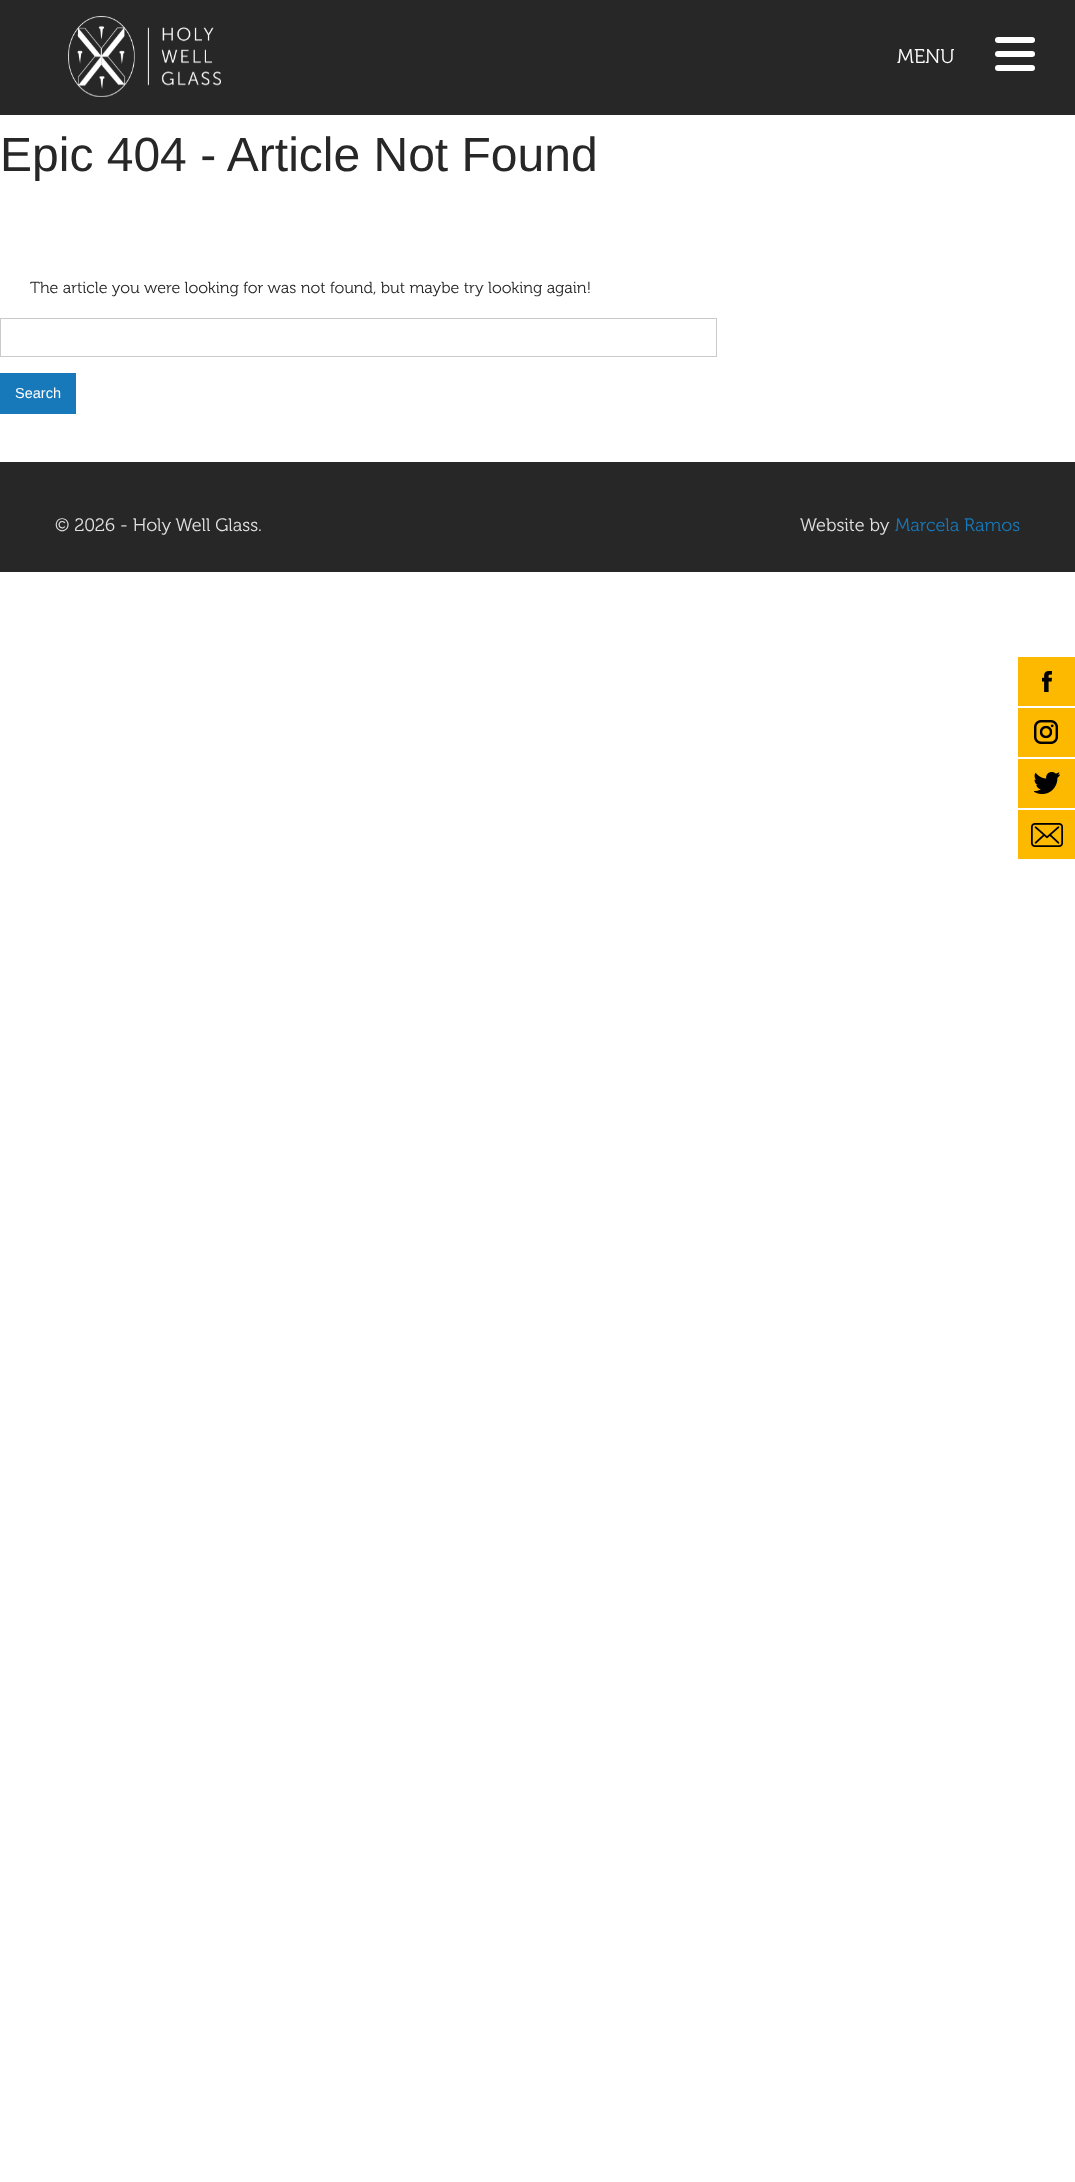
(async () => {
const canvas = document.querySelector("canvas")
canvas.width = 1075
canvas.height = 2182
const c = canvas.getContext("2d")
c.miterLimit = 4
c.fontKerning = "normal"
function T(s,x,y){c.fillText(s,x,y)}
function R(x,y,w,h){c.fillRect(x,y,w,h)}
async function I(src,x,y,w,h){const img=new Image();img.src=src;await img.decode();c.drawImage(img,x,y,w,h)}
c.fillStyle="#fff"
R(0,0,1075,2182)
c.fillStyle="#272727"
R(0,0,1075,115)
await I("1.png",68,16,153,81)
c.font="300 20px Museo"
c.fillStyle="#fefefe"
T("MENU",897,63)
c.fillStyle="#fff"
c.beginPath()
c.roundRect(995,37,20,6,[3,0,0,3])
c.fill()
c.beginPath()
c.roundRect(1015,37,20,6,[0,3,3,0])
c.fill()
c.beginPath()
c.roundRect(995,51,20,6,[3,0,0,3])
c.fill()
c.beginPath()
c.roundRect(1015,51,20,6,[0,3,3,0])
c.fill()
c.beginPath()
c.roundRect(995,65,20,6,[3,0,0,3])
c.fill()
c.beginPath()
c.roundRect(1015,65,20,6,[0,3,3,0])
c.fill()
c.font="48px Liberation Sans"
c.fillStyle="#272727"
T("Epic 404 - Article Not Found",0,171)
c.font="300 16px Museo"
T("The article you were looking for was not found, but maybe try looking again!",30,293)
c.strokeStyle="#cacaca"
c.strokeRect(.5,318.5,716,38)
c.fillStyle="#1779ba"
R(0,373,76,41)
c.font="14.5px Liberation Sans"
c.fillStyle="#fefefe"
T("Search",15,398)
c.fillStyle="#272727"
R(0,462,1075,110)
c.font="300 18px Museo"
c.fillStyle="#e1e1e1"
T("© 2026 - Holy Well Glass.",55,531)
T("Website by",800,531)
c.fillStyle="#1779ba"
T("Marcela Ramos",895,531)
c.fillStyle="#fcb900"
R(1018,657,57,49)
await I("2.png",1042,671,10,21)
R(1018,708,57,49)
await I("3.png",1034,720,24,24)
R(1018,759,57,49)
await I("4.png",1034,772,26,22)
R(1018,810,57,49)
await I("5.png",1031,823,32,24)
})()
